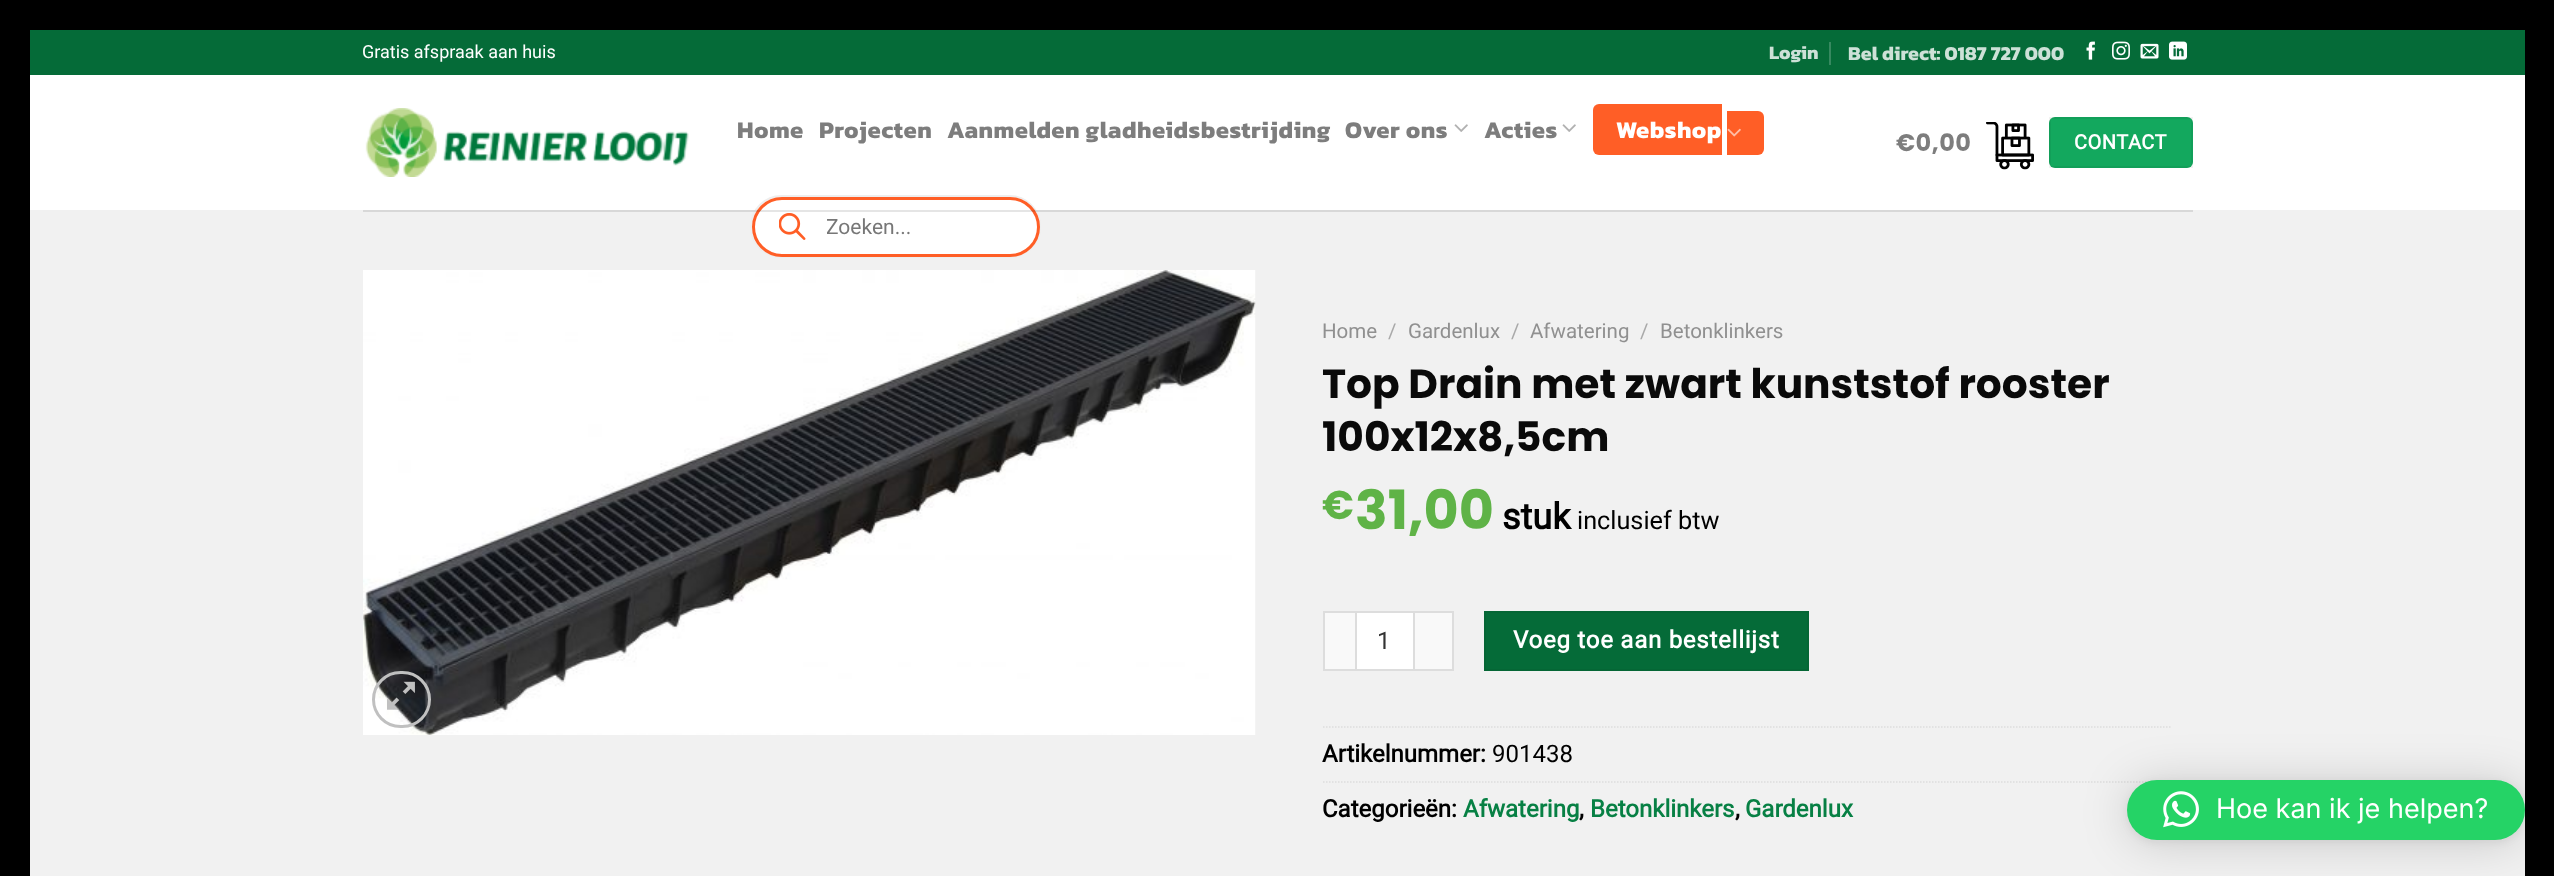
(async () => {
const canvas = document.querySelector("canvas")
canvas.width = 2554
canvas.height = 876
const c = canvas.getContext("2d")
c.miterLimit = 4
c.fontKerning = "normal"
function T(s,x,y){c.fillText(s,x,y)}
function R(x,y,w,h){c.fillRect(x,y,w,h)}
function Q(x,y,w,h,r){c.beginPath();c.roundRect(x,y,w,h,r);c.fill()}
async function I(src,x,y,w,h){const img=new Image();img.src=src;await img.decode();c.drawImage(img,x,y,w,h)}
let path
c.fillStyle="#fff"
R(0,0,2554,876)
c.strokeStyle="#000"
c.lineWidth=30
c.strokeRect(15,15,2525,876)
c.fillStyle="#056b38"
R(30,30,2495,45)
c.font="18px Roboto"
c.fillStyle="#fff"
T("Gratis afspraak aan huis",362,58)
c.font="bold 19px Kanit"
c.fillStyle="#cde1d7"
T("Login",1769,59)
c.fillStyle="#378960"
R(1829,42,2,23)
c.font="bold 19.75px Kanit"
c.fillStyle="#cde1d7"
T("Bel direct: 0187 727 000",1848,60)
await I("1.png",2086,41,9,19)
await I("2.png",2112,41,18,19)
await I("3.png",2140,43,19,16)
await I("4.png",2169,41,18,19)
await I("5.png",365,108,324,69)
c.letterSpacing="0.5px"
c.font="bold 24px Kanit"
c.fillStyle="#7d7d7d"
T("Home",737,138)
T("Projecten",819,138)
T("Aanmelden gladheidsbestrijding",947,138)
T("Over ons",1345,138)
await I("6.png",1454,124,14,8)
T("Acties",1484,138)
await I("6.png",1562,124,14,8)
c.fillStyle="#ff5e26"
c.beginPath()
c.roundRect(1593,104,129,51,[6,0,0,6])
c.fill()
c.beginPath()
c.roundRect(1727,111,37,44,[0,6,6,0])
c.fill()
c.fillStyle="#fff"
T("Webshop",1616,138)
await I("7.png",1727,128,14,9)
c.fillStyle="#f1f1f1"
R(30,210,2495,666)
c.beginPath()
c.roundRect(751,196,289,61,30.5)
c.strokeStyle="#eee"
c.lineWidth=2
c.stroke()
c.fillStyle="#fff"
c.beginPath()
c.roundRect(753.5,198.5,285,57,28.5)
c.fill()
c.strokeStyle="#ff5e26"
c.lineWidth=3
c.stroke()
await I("8.png",779,213,27,27)
c.save()
c.beginPath()
c.rect(827,215,174,24)
c.clip()
c.letterSpacing="0px"
c.font="21px Roboto"
c.fillStyle="#777"
T("Zoeken...",826,234)
c.restore()
c.font="bold 24px Poppins"
c.fillStyle="#7d7d7d"
T("€0,00",1896,151)
await I("9.png",1986,122,48,48)
c.fillStyle="#13a85e"
Q(2049,117,144,51,6)
c.strokeStyle="#0000000d"
c.lineWidth=2
c.strokeRect(2050,118,142,49)
c.font="bold 20px Roboto"
c.fillStyle="#fff"
T("CONTACT",2074,149)
c.fillStyle="#0000001a"
R(363,210,1830,2)
await I("10.png",363,270,893,465)
c.beginPath()
c.roundRect(373.5,672.5,56,54,27)
c.strokeStyle="#c0c0c0"
c.lineWidth=3
c.stroke()
await I("11.png",387,681,28,29)
c.letterSpacing="0px"
c.font="20.5px Roboto"
c.fillStyle="#909090"
T("Home",1322,338)
c.fillStyle="#a9a9a9"
T("/",1388,338)
c.fillStyle="#909090"
T("Gardenlux",1408,338)
c.fillStyle="#a9a9a9"
T("/",1511,338)
c.fillStyle="#909090"
T("Afwatering",1530,338)
c.fillStyle="#a9a9a9"
T("/",1640,338)
c.fillStyle="#909090"
T("Betonklinkers",1660,338)
c.font="bold 40.75px Poppins"
c.fillStyle="#0a0a0a"
T("Top Drain met zwart kunststof rooster",1322,398)
T("100x12x8,5cm",1322,451)
c.font="bold 40px Poppins"
c.fillStyle="#5fb347"
T("€",1322,519)
c.font="bold 54px Poppins"
T("31,00",1355,529)
c.font="bold 36px Roboto"
c.fillStyle="#000"
T("stuk",1502,529)
c.font="25.25px Roboto"
T("inclusief btw",1577,529)
c.fillStyle="#f9f9f9"
R(1325,613,30,56)
c.fillStyle="#ddd"
R(1323,611,32,2)
R(1323,669,32,2)
R(1323,611,2,60)
c.fillStyle="#fff"
c.beginPath()
c.rect(1356,612,58,58)
c.fill()
c.strokeStyle="#ddd"
c.lineWidth=2
c.stroke()
c.font="24px Roboto"
c.fillStyle="#333"
T("1",1377,649)
c.fillStyle="#f9f9f9"
R(1415,613,37,56)
c.fillStyle="#ddd"
R(1415,611,39,2)
R(1452,611,2,60)
R(1415,669,39,2)
c.fillStyle="#056b38"
c.beginPath()
c.rect(1485,612,323,58)
c.fill()
c.strokeStyle="#056635"
c.stroke()
c.letterSpacing="0.75px"
c.font="bold 24px Roboto"
c.fillStyle="#fff"
T("Voeg toe aan bestellijst",1513,648)
path = new Path2D("M1323 727h847.5")
c.strokeStyle="#ddd"
c.lineWidth=1.5
c.setLineDash([1.5,1.5])
c.stroke(path)
c.letterSpacing="0px"
c.fillStyle="#000"
T("Artikelnummer:",1322,762)
c.font="24px Roboto"
T("901438",1492,762)
path = new Path2D("M1323 782h847.5")
c.stroke(path)
c.font="bold 24px Roboto"
T("Categorieën:",1322,817)
c.fillStyle="#078044"
T("Afwatering",1463,817)
c.fillStyle="#000"
T(",",1579,817)
c.fillStyle="#078044"
T("Betonklinkers",1590,817)
c.fillStyle="#000"
T(",",1735,817)
c.fillStyle="#078044"
T("Gardenlux",1745,817)
c.fillStyle="#00000029"
c.filter="blur(24px)"
c.beginPath()
c.roundRect(2127,783,398,60,30)
c.fill()
c.filter="none"
c.fillStyle="#0000000f"
c.filter="blur(4.5px)"
c.beginPath()
c.roundRect(2127,782,398,60,30)
c.fill()
c.filter="none"
c.fillStyle="#25d366"
Q(2127,780,398,60,30)
await I("12.png",2163,791,36,37)
c.font="27px Inter"
c.fillStyle="#fff"
T("Hoe kan ik je helpen?",2216,818)
})()
